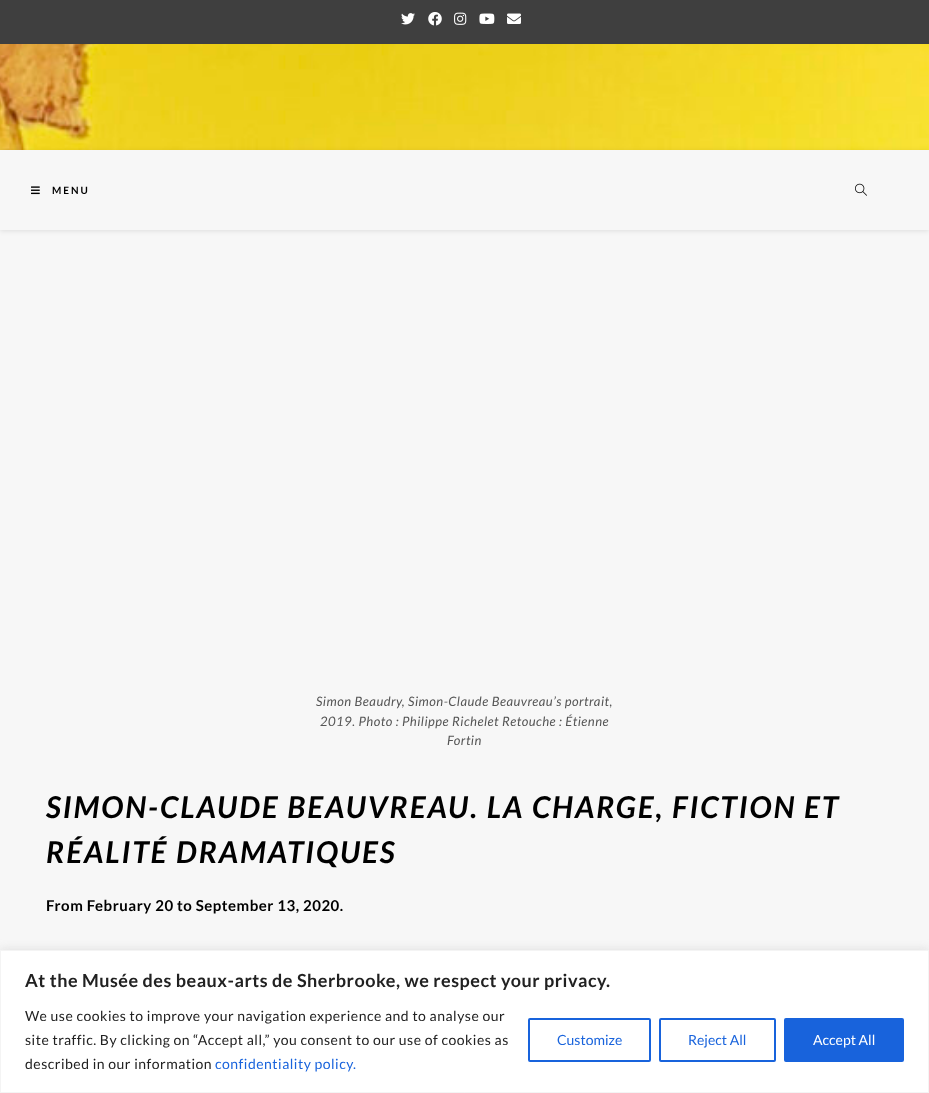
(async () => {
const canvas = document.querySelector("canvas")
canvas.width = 929
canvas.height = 1093
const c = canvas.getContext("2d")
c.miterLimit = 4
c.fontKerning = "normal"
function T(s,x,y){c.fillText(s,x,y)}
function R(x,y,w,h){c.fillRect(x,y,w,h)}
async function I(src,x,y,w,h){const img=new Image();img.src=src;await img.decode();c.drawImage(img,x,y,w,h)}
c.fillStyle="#f7f7f7"
R(0,0,929,1093)
c.fillStyle="#3f3f3f"
R(0,0,929,44)
await I("1.png",401,13,14,12)
await I("2.png",428,12,14,14)
await I("3.png",454,12,13,13)
await I("4.png",479,13,16,11)
await I("5.png",507,13,14,11)
await I("6.png",0,44,929,106)
c.fillStyle="#0000001a"
c.filter="blur(2.5px)"
c.beginPath()
c.rect(0,151,929,80)
c.fill()
c.filter="none"
c.fillStyle="#f7f7f7"
R(0,150,929,80)
await I("7.png",31,186,9,9)
c.letterSpacing="2px"
c.font="bold 10px Lato"
c.fillStyle="#000"
T("MENU",52,194)
await I("8.png",855,183,12,13)
c.letterSpacing="0.5px"
c.font="italic 13px Lato"
c.fillStyle="#555"
T("Simon Beaudry, Simon-Claude Beauvreau’s portrait,",316,706)
T("2019. Photo : Philippe Richelet Retouche : Étienne",320,726)
T("Fortin",447,745)
c.letterSpacing="2px"
c.font="italic bold 30px Lato"
c.fillStyle="#000"
T("SIMON-CLAUDE BEAUVREAU. LA CHARGE, FICTION ET",46,818)
T("RÉALITÉ DRAMATIQUES",46,863)
c.letterSpacing="0.5px"
c.font="bold 15px Lato"
T("From February 20 to September 13, 2020.",46,911)
c.fillStyle="#acabab4d"
c.filter="blur(5px)"
c.beginPath()
c.rect(0,949,929,143)
c.fill()
c.filter="none"
c.fillStyle="#fff"
c.beginPath()
c.rect(.5,950.5,928,142)
c.fill()
c.strokeStyle="#f4f4f4"
c.stroke()
c.font="bold 18px Lato"
c.fillStyle="#212121"
T("At the Musée des beaux-arts de Sherbrooke, we respect your privacy.",25,987)
c.font="14px Lato"
T("We use cookies to improve your navigation experience and to analyse our",25,1021)
T("site traffic. By clicking on “Accept all,” you consent to our use of cookies as",25,1045)
T("described in our information",25,1069)
c.fillStyle="#1863dc"
T("confidentiality policy.",215,1069)
c.beginPath()
c.roundRect(529,1019,121,42,1)
c.strokeStyle="#1863dc"
c.lineWidth=2
c.stroke()
c.letterSpacing="0px"
T("Customize",557,1045)
c.beginPath()
c.roundRect(660,1019,115,42,1)
c.stroke()
T("Reject All",688,1045)
c.beginPath()
c.roundRect(785,1019,118,42,1)
c.fill()
c.stroke()
c.fillStyle="#fff"
T("Accept All",813,1045)
})()
